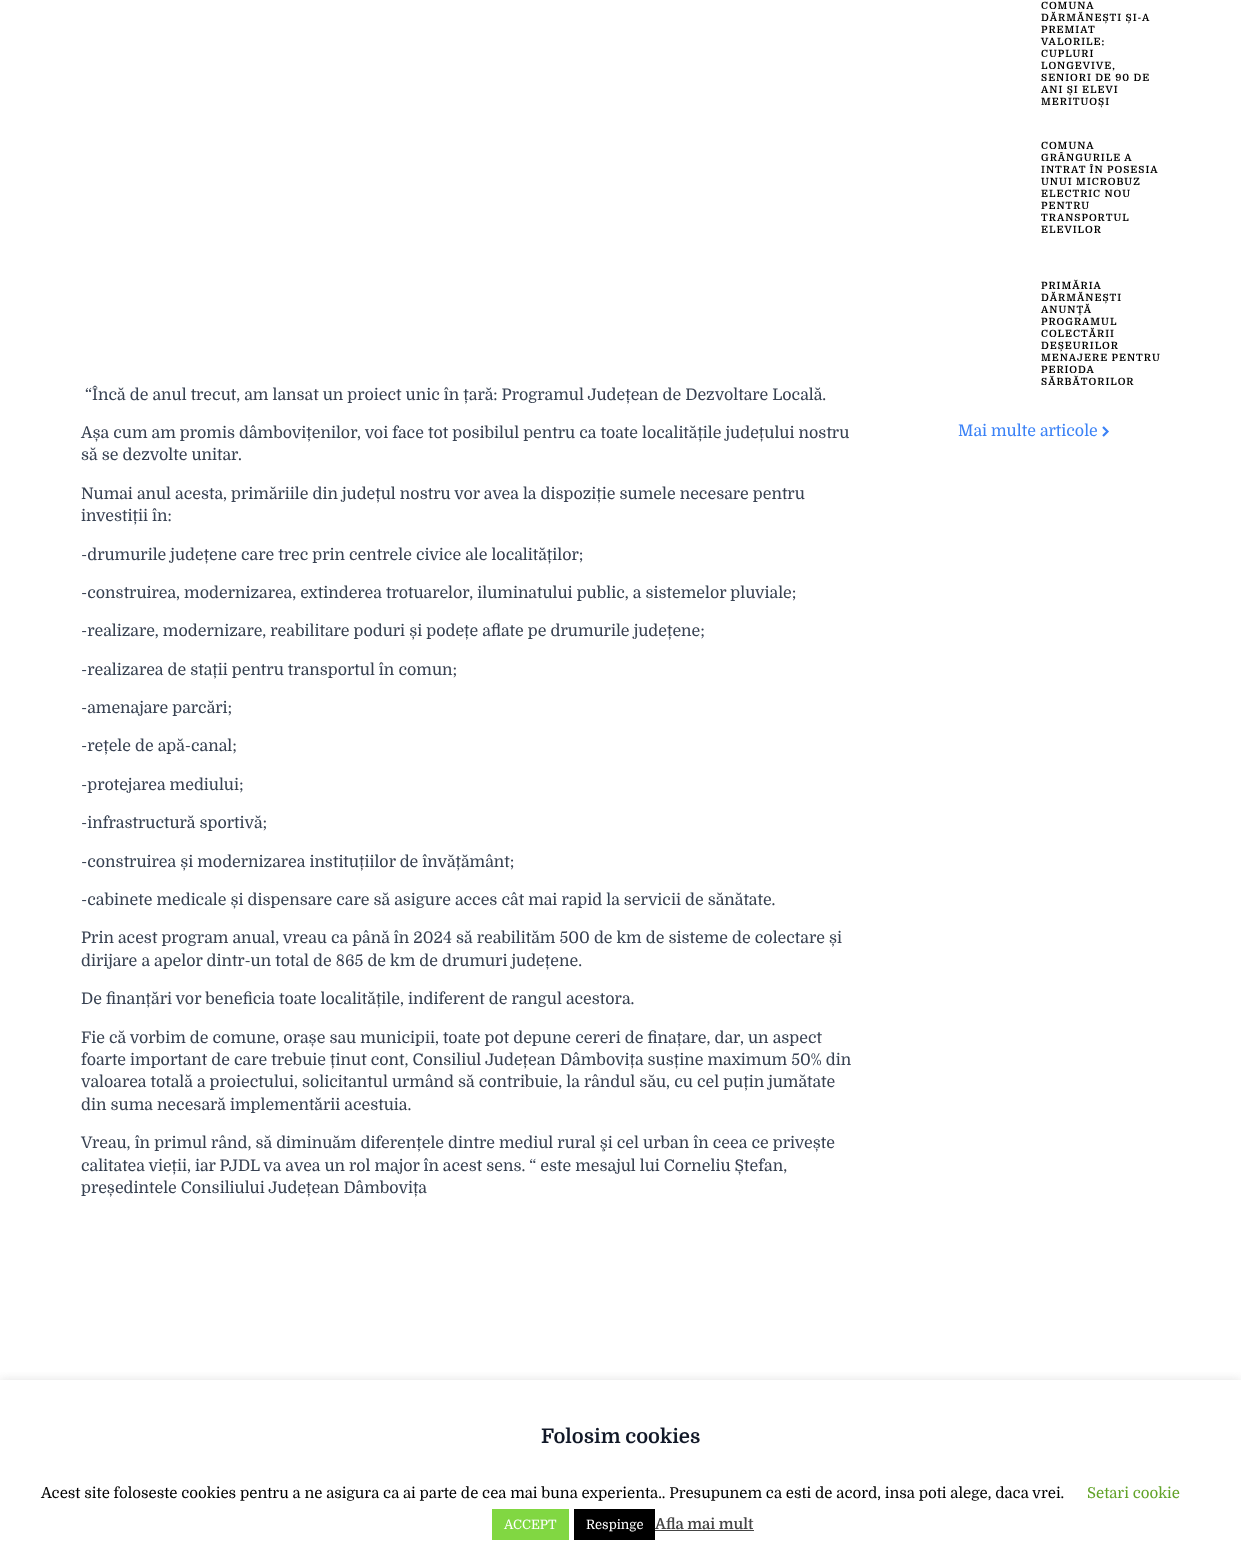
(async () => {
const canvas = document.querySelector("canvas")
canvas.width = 1241
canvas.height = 1552
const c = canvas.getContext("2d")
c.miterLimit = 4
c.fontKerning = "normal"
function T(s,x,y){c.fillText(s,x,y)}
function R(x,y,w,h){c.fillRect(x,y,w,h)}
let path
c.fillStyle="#fff"
R(0,0,1241,1552)
c.letterSpacing="1px"
c.font="bold 10px Domine"
c.fillStyle="#000"
T("COMUNA",1041,9)
T("DĂRMĂNEȘTI ȘI-A",1041,21)
T("PREMIAT",1041,33)
T("VALORILE:",1041,45)
T("CUPLURI",1041,57)
T("LONGEVIVE,",1041,69)
T("SENIORI DE 90 DE",1041,81)
T("ANI ȘI ELEVI",1041,93)
T("MERITUOȘI",1041,105)
T("COMUNA",1041,149)
T("GRÂNGURILE A",1041,161)
T("INTRAT ÎN POSESIA",1041,173)
T("UNUI MICROBUZ",1041,185)
T("ELECTRIC NOU",1041,197)
T("PENTRU",1041,209)
T("TRANSPORTUL",1041,221)
T("ELEVILOR",1041,233)
T("PRIMĂRIA",1041,289)
T("DĂRMĂNEȘTI",1041,301)
T("ANUNȚĂ",1041,313)
T("PROGRAMUL",1041,325)
T("COLECTĂRII",1041,337)
T("DEȘEURILOR",1041,349)
T("MENAJERE PENTRU",1041,361)
T("PERIODA",1041,373)
T("SĂRBĂTORILOR",1041,385)
c.letterSpacing="0px"
c.font="16px Domine"
c.fillStyle="#3b82f6"
T("Mai multe articole",958,436)
path = new Path2D("M1103 427l4.5 4.5l-4.5 4.5")
c.strokeStyle="#3b82f6"
c.lineWidth=2.2
c.stroke(path)
c.fillStyle="#374151"
T("“Încă de anul trecut, am lansat un proiect unic în țară: Programul Județean de Dezvoltare Locală.",85,400)
T("Așa cum am promis dâmbovițenilor, voi face tot posibilul pentru ca toate localitățile județului nostru",81,438)
T("să se dezvolte unitar.",81,460)
T("Numai anul acesta, primăriile din județul nostru vor avea la dispoziție sumele necesare pentru",81,499)
T("investiții în:",81,521)
T("-drumurile județene care trec prin centrele civice ale localităților;",81,560)
T("-construirea, modernizarea, extinderea trotuarelor, iluminatului public, a sistemelor pluviale;",81,598)
T("-realizare, modernizare, reabilitare poduri și podețe aflate pe drumurile județene;",81,636)
T("-realizarea de stații pentru transportul în comun;",81,675)
T("-amenajare parcări;",81,713)
T("-rețele de apă-canal;",81,751)
T("-protejarea mediului;",81,790)
T("-infrastructură sportivă;",81,828)
T("-construirea și modernizarea instituțiilor de învățământ;",81,867)
T("-cabinete medicale și dispensare care să asigure acces cât mai rapid la servicii de sănătate.",81,905)
T("Prin acest program anual, vreau ca până în 2024 să reabilităm 500 de km de sisteme de colectare și",81,943)
T("dirijare a apelor dintr-un total de 865 de km de drumuri județene.",81,966)
T("De finanțări vor beneficia toate localitățile, indiferent de rangul acestora.",81,1004)
T("Fie că vorbim de comune, orașe sau municipii, toate pot depune cereri de finațare, dar, un aspect",81,1043)
T("foarte important de care trebuie ținut cont, Consiliul Județean Dâmbovița susține maximum 50% din",81,1065)
T("valoarea totală a proiectului, solicitantul urmând să contribuie, la rândul său, cu cel puțin jumătate",81,1087)
T("din suma necesară implementării acestuia.",81,1110)
T("Vreau, în primul rând, să diminuăm diferențele dintre mediul rural şi cel urban în ceea ce privește",81,1148)
c.wordSpacing="-0.1px"
T("calitatea vieții, iar PJDL va avea un rol major în acest sens. “ este mesajul lui Corneliu Ștefan,",81,1171)
c.wordSpacing="0px"
T("președintele Consiliului Județean Dâmbovița",81,1193)
c.save()
c.beginPath()
c.rect(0,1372,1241,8)
c.clip()
c.fillStyle="#acabab4d"
c.filter="blur(5px)"
c.beginPath()
c.rect(0,1379,1241,172)
c.fill()
c.filter="none"
c.restore()
c.font="bold 20px Domine"
c.fillStyle="#111827"
T("Folosim cookies",541,1443)
c.font="15px Domine"
c.fillStyle="#000"
T("Acest site foloseste cookies pentru a ne asigura ca ai parte de cea mai buna experienta.. Presupunem ca esti de acord, insa poti alege, daca vrei.",41,1498)
c.fillStyle="#62a329"
T("Setari cookie",1087,1498)
c.fillStyle="#81d742"
R(492,1509,77,31)
c.font="13px Domine"
c.fillStyle="#fff"
T("ACCEPT",504,1529)
c.fillStyle="#000"
R(574,1509,81,31)
c.fillStyle="#fff"
T("Respinge",586,1529)
c.font="600 15px Domine"
c.fillStyle="#444"
T("Afla mai mult",655,1529)
R(655,1530,99,1)
})()
